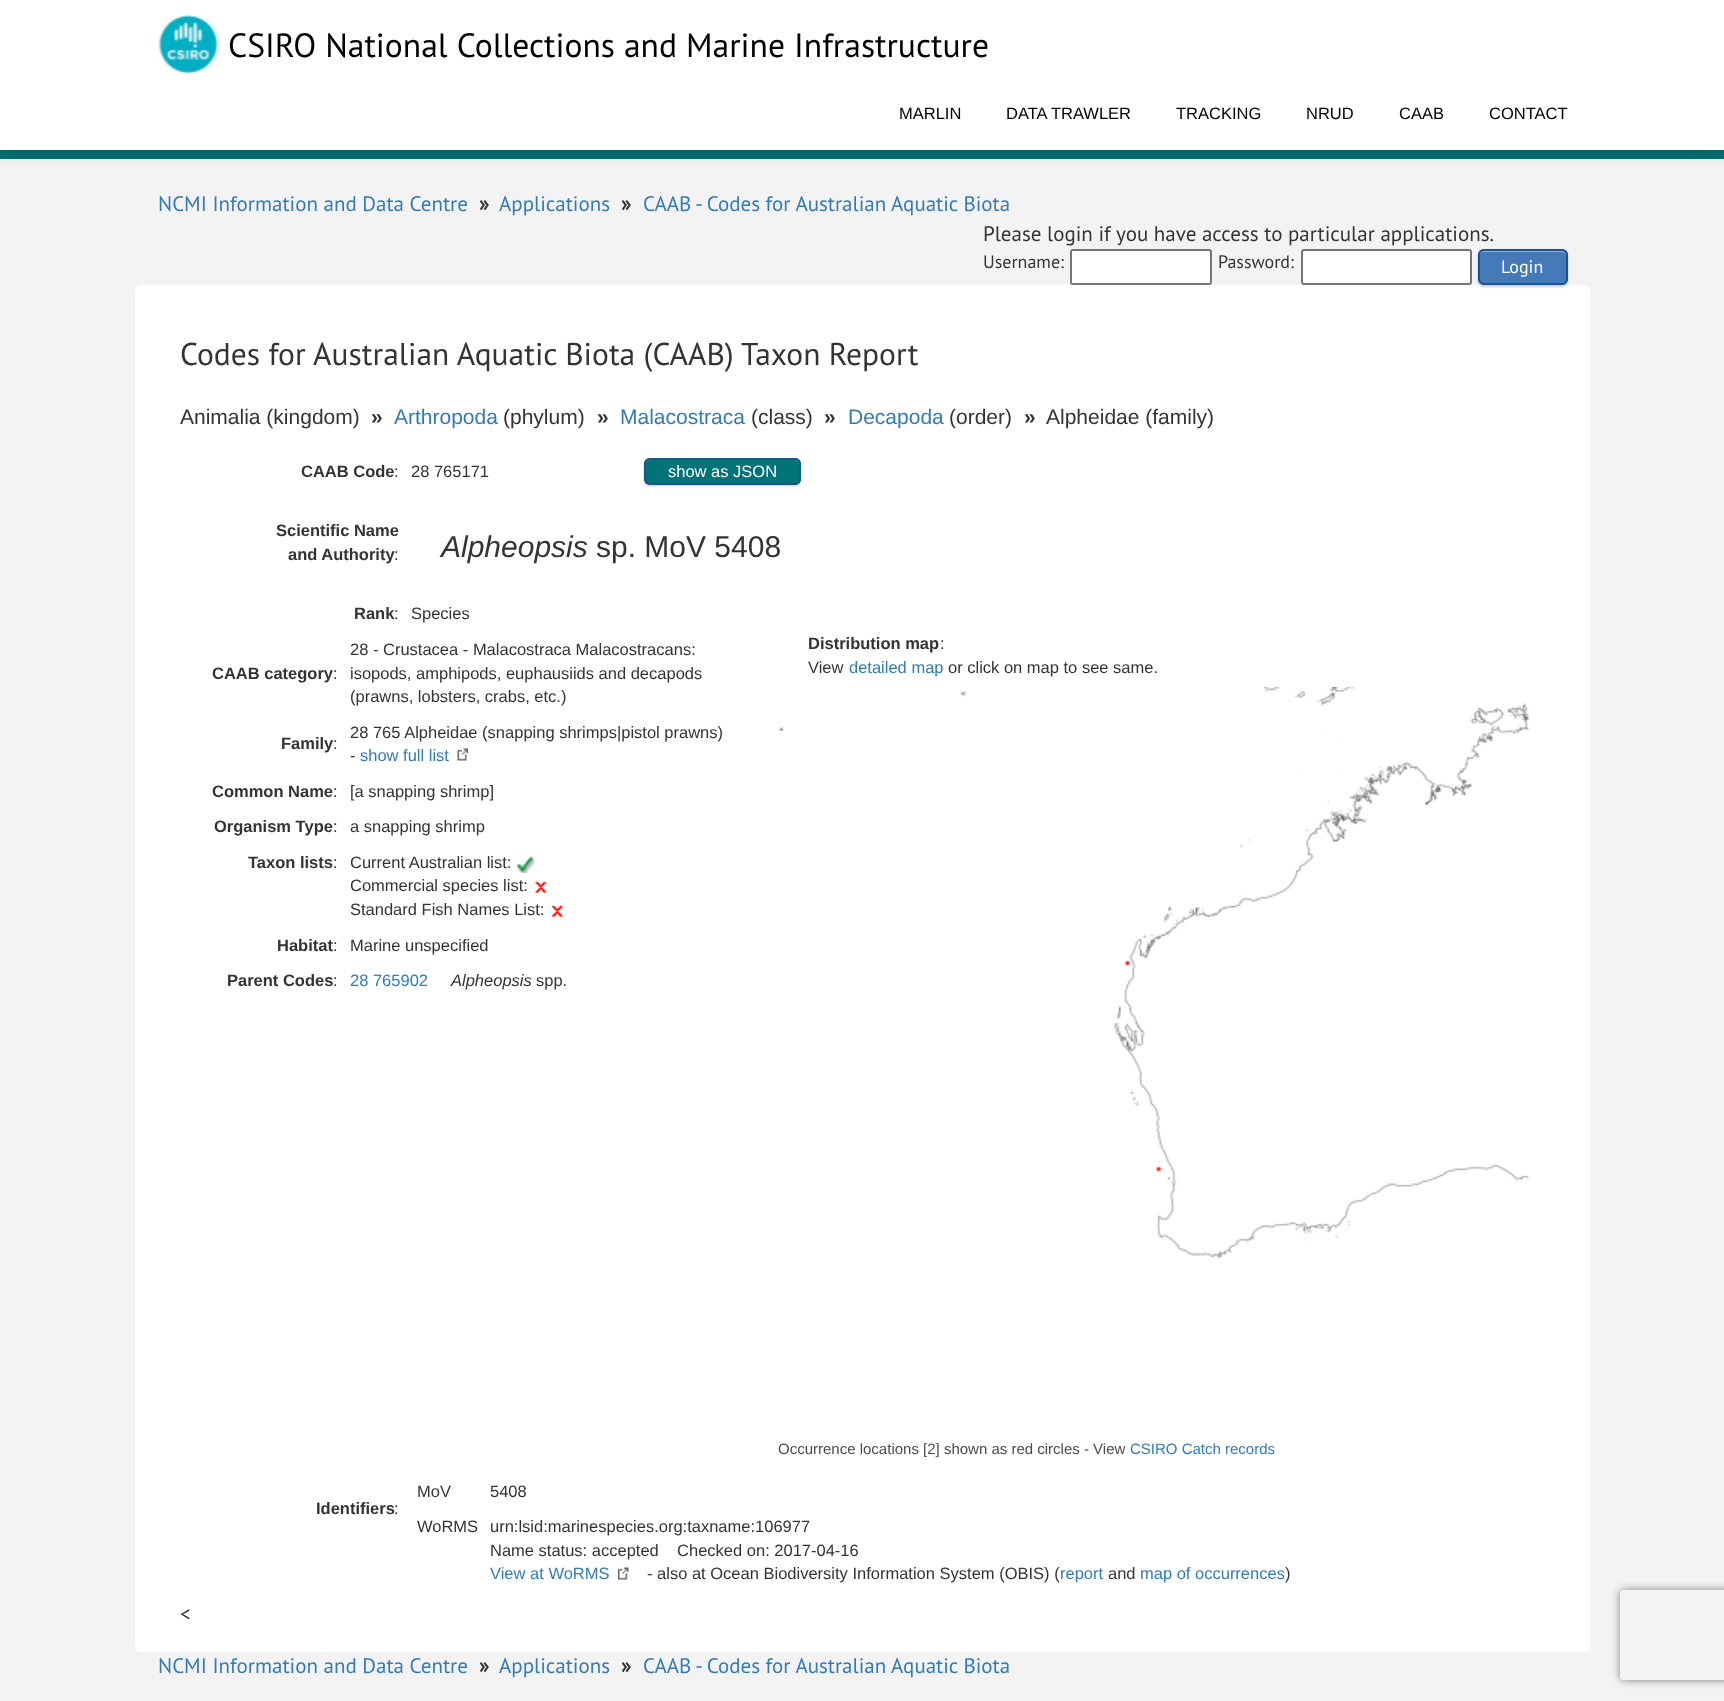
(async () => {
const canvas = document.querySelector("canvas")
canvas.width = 1724
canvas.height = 1701
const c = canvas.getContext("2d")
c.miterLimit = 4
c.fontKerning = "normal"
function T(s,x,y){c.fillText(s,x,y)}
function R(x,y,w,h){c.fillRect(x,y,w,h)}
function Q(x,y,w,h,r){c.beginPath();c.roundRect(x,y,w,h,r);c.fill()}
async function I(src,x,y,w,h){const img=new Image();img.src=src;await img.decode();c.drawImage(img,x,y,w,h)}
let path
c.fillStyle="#f3f3f3"
R(0,0,1724,1701)
c.fillStyle="#007377"
R(0,150,1724,9)
c.fillStyle="#00000033"
c.filter="blur(7.5px)"
c.beginPath()
c.rect(0,3,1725,150)
c.fill()
c.filter="none"
c.fillStyle="#fff"
R(0,0,1724,150)
await I("1.png",158,15,61,59)
c.font="33.6px PT Sans"
c.fillStyle="#000"
T("CSIRO National Collections and Marine Infrastructure",228,57)
c.font="16.5px Liberation Sans"
T("MARLIN",899,119)
T("DATA TRAWLER",1006,119)
T("TRACKING",1176,119)
T("NRUD",1306,119)
T("CAAB",1399,119)
T("CONTACT",1489,119)
c.font="21px PT Sans"
c.fillStyle="#337ab7"
T("NCMI Information and Data Centre",158,211)
c.font="bold 21px PT Sans"
c.fillStyle="#333"
T("»",479,211)
c.font="21px PT Sans"
c.fillStyle="#337ab7"
T("Applications",499,211)
c.font="bold 21px PT Sans"
c.fillStyle="#333"
T("»",621,211)
c.font="21px PT Sans"
c.fillStyle="#337ab7"
T("CAAB - Codes for Australian Aquatic Biota",643,211)
c.fillStyle="#333"
T("Please login if you have access to particular applications.",983,241)
c.font="18px PT Sans"
T("Username:",983,268)
c.fillStyle="#fff"
c.beginPath()
c.roundRect(1071,250,140,34,2)
c.fill()
c.strokeStyle="#767676"
c.lineWidth=2
c.stroke()
c.fillStyle="#333"
T("Password:",1218,268)
c.fillStyle="#fff"
c.beginPath()
c.roundRect(1302,250,169,34,2)
c.fill()
c.stroke()
Q(135,285,1455,1367,6)
c.fillStyle="#00000033"
c.filter="blur(1px)"
c.beginPath()
c.roundRect(1478,251,90,36,6)
c.fill()
c.filter="none"
c.fillStyle="#4479ba"
Q(1478,249,90,36,6)
c.fillStyle="#8fafd6"
path = new Path2D("M1484 252h78c2 0 4 2 4 4c0-3-2-5-5-5h-77c-3 0-5 2-5 5c0-2 2-4 5-4z")
c.fill(path)
c.beginPath()
c.roundRect(1479,250,88,34,5)
c.strokeStyle="#20538d"
c.stroke()
c.fillStyle="#fff"
T("Login",1501,273)
c.save()
path = new Path2D("M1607 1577h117v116h-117zm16 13h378c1.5 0 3 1.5 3 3v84c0 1.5-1.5 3-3 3h-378c-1.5 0-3-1.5-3-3v-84c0-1.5 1.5-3 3-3z")
c.clip(path,"evenodd")
c.fillStyle="#808080"
c.filter="blur(4px)"
c.beginPath()
c.roundRect(1620,1590,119,90,3)
c.fill()
c.filter="none"
c.restore()
c.font="31.5px PT Sans"
c.fillStyle="#333"
T("Codes for Australian Aquatic Biota (CAAB) Taxon Report",180,365)
c.font="21px Liberation Sans"
T("Animalia (kingdom)",180,424)
c.font="bold 21px Liberation Sans"
T("»",371,424)
c.font="21px Liberation Sans"
c.fillStyle="#337ab7"
T("Arthropoda",394,424)
c.fillStyle="#333"
T("(phylum)",503,424)
c.font="bold 21px Liberation Sans"
T("»",597,424)
c.font="21px Liberation Sans"
c.fillStyle="#337ab7"
T("Malacostraca",620,424)
c.fillStyle="#333"
T("(class)",751,424)
c.font="bold 21px Liberation Sans"
T("»",824,424)
c.font="21px Liberation Sans"
c.fillStyle="#337ab7"
T("Decapoda",848,424)
c.fillStyle="#333"
T("(order)",949,424)
c.font="bold 21px Liberation Sans"
T("»",1024,424)
c.font="21px Liberation Sans"
T("Alpheidae (family)",1046,424)
c.font="bold 16.5px Liberation Sans"
T("CAAB Code",301,477)
c.font="16.5px Liberation Sans"
T(":",394,477)
T("28 765171",411,477)
c.fillStyle="#00000033"
c.filter="blur(1px)"
c.beginPath()
c.roundRect(644,459,157,27,6)
c.fill()
c.filter="none"
c.fillStyle="#007377"
Q(644,458,157,27,6)
c.fillStyle="#66abad"
path = new Path2D("M650 460h145c2 0 5 3 5 5v-1c0-3-2-5-5-5h-145c-3 0-5 2-5 5v1c0-2 2-5 5-5z")
c.fill(path)
c.beginPath()
c.roundRect(645,459,155,25,5)
c.stroke()
c.fillStyle="#fff"
T("show as JSON",668,477)
c.font="bold 16.5px Liberation Sans"
c.fillStyle="#333"
T("Scientific Name",276,536)
T("and Authority",288,560)
c.font="16.5px Liberation Sans"
T(":",394,560)
c.font="italic 30px Liberation Sans"
T("Alpheopsis",441,557)
c.font="30px Liberation Sans"
T("sp. MoV 5408",596,557)
c.font="bold 16.5px Liberation Sans"
T("Rank",354,619)
c.font="16.5px Liberation Sans"
T(":",394,619)
T("Species",411,619)
c.font="bold 16.5px Liberation Sans"
T("CAAB category",212,679)
c.font="16.5px Liberation Sans"
T(":",333,679)
T("28 - Crustacea - Malacostraca Malacostracans:",350,655)
T("isopods, amphipods, euphausiids and decapods",350,679)
T("(prawns, lobsters, crabs, etc.)",350,702)
c.font="bold 16.5px Liberation Sans"
T("Family",281,749)
c.font="16.5px Liberation Sans"
T(":",333,749)
T("28 765 Alpheidae (snapping shrimps|pistol prawns)",350,738)
T("-",350,761)
c.fillStyle="#337ab7"
T("show full list",360,761)
await I("2.png",457,748,11,13)
c.font="bold 16.5px Liberation Sans"
c.fillStyle="#333"
T("Common Name",212,797)
c.font="16.5px Liberation Sans"
T(":",333,797)
T("[a snapping shrimp]",350,797)
c.font="bold 16.5px Liberation Sans"
T("Organism Type",214,832)
c.font="16.5px Liberation Sans"
T(":",333,832)
T("a snapping shrimp",350,832)
c.font="bold 16.5px Liberation Sans"
T("Taxon lists",248,868)
c.font="16.5px Liberation Sans"
T(":",333,868)
T("Current Australian list:",350,868)
await I("3.png",517,856,17,17)
T("Commercial species list:",350,891)
await I("4.png",535,881,12,12)
T("Standard Fish Names List:",350,915)
await I("5.png",551,905,12,12)
c.font="bold 16.5px Liberation Sans"
T("Habitat",277,951)
c.font="16.5px Liberation Sans"
T(":",333,951)
T("Marine unspecified",350,951)
c.font="bold 16.5px Liberation Sans"
T("Parent Codes",227,986)
c.font="16.5px Liberation Sans"
T(":",333,986)
c.fillStyle="#337ab7"
T("28 765902",350,986)
c.font="italic 16.5px Liberation Sans"
c.fillStyle="#333"
T("Alpheopsis",451,986)
c.font="16.5px Liberation Sans"
T("spp.",536,986)
c.font="bold 16.5px Liberation Sans"
T("Distribution map",808,649)
c.font="16.5px Liberation Sans"
T(":",940,649)
T("View",808,673)
c.fillStyle="#337ab7"
T("detailed map",849,673)
c.fillStyle="#333"
T("or click on map to see same.",948,673)
await I("6.png",778,687,751,572)
c.font="15px Liberation Sans"
c.fillStyle="#4a4a4a"
T("Occurrence locations [2] shown as red circles - View",778,1454)
c.fillStyle="#337ab7"
T("CSIRO Catch records",1130,1454)
c.font="bold 16.5px Liberation Sans"
c.fillStyle="#333"
T("Identifiers",316,1514)
c.font="16.5px Liberation Sans"
T(":",394,1514)
T("MoV",417,1497)
T("5408",490,1497)
T("WoRMS",417,1532)
T("urn:lsid:marinespecies.org:taxname:106977",490,1532)
T("Name status: accepted    Checked on: 2017-04-16",490,1556)
c.fillStyle="#337ab7"
T("View at WoRMS",490,1579)
await I("7.png",618,1567,11,13)
c.fillStyle="#333"
T("- also at Ocean Biodiversity Information System (OBIS) (",647,1579)
c.fillStyle="#337ab7"
T("report",1060,1579)
c.fillStyle="#333"
T("and",1108,1579)
c.fillStyle="#337ab7"
T("map of occurrences",1140,1579)
c.fillStyle="#333"
T(")",1285,1579)
c.font="21px PT Sans"
T("<",180,1621)
c.fillStyle="#337ab7"
T("NCMI Information and Data Centre",158,1673)
c.font="bold 21px PT Sans"
c.fillStyle="#333"
T("»",479,1673)
c.font="21px PT Sans"
c.fillStyle="#337ab7"
T("Applications",499,1673)
c.font="bold 21px PT Sans"
c.fillStyle="#333"
T("»",621,1673)
c.font="21px PT Sans"
c.fillStyle="#337ab7"
T("CAAB - Codes for Australian Aquatic Biota",643,1673)
})()
